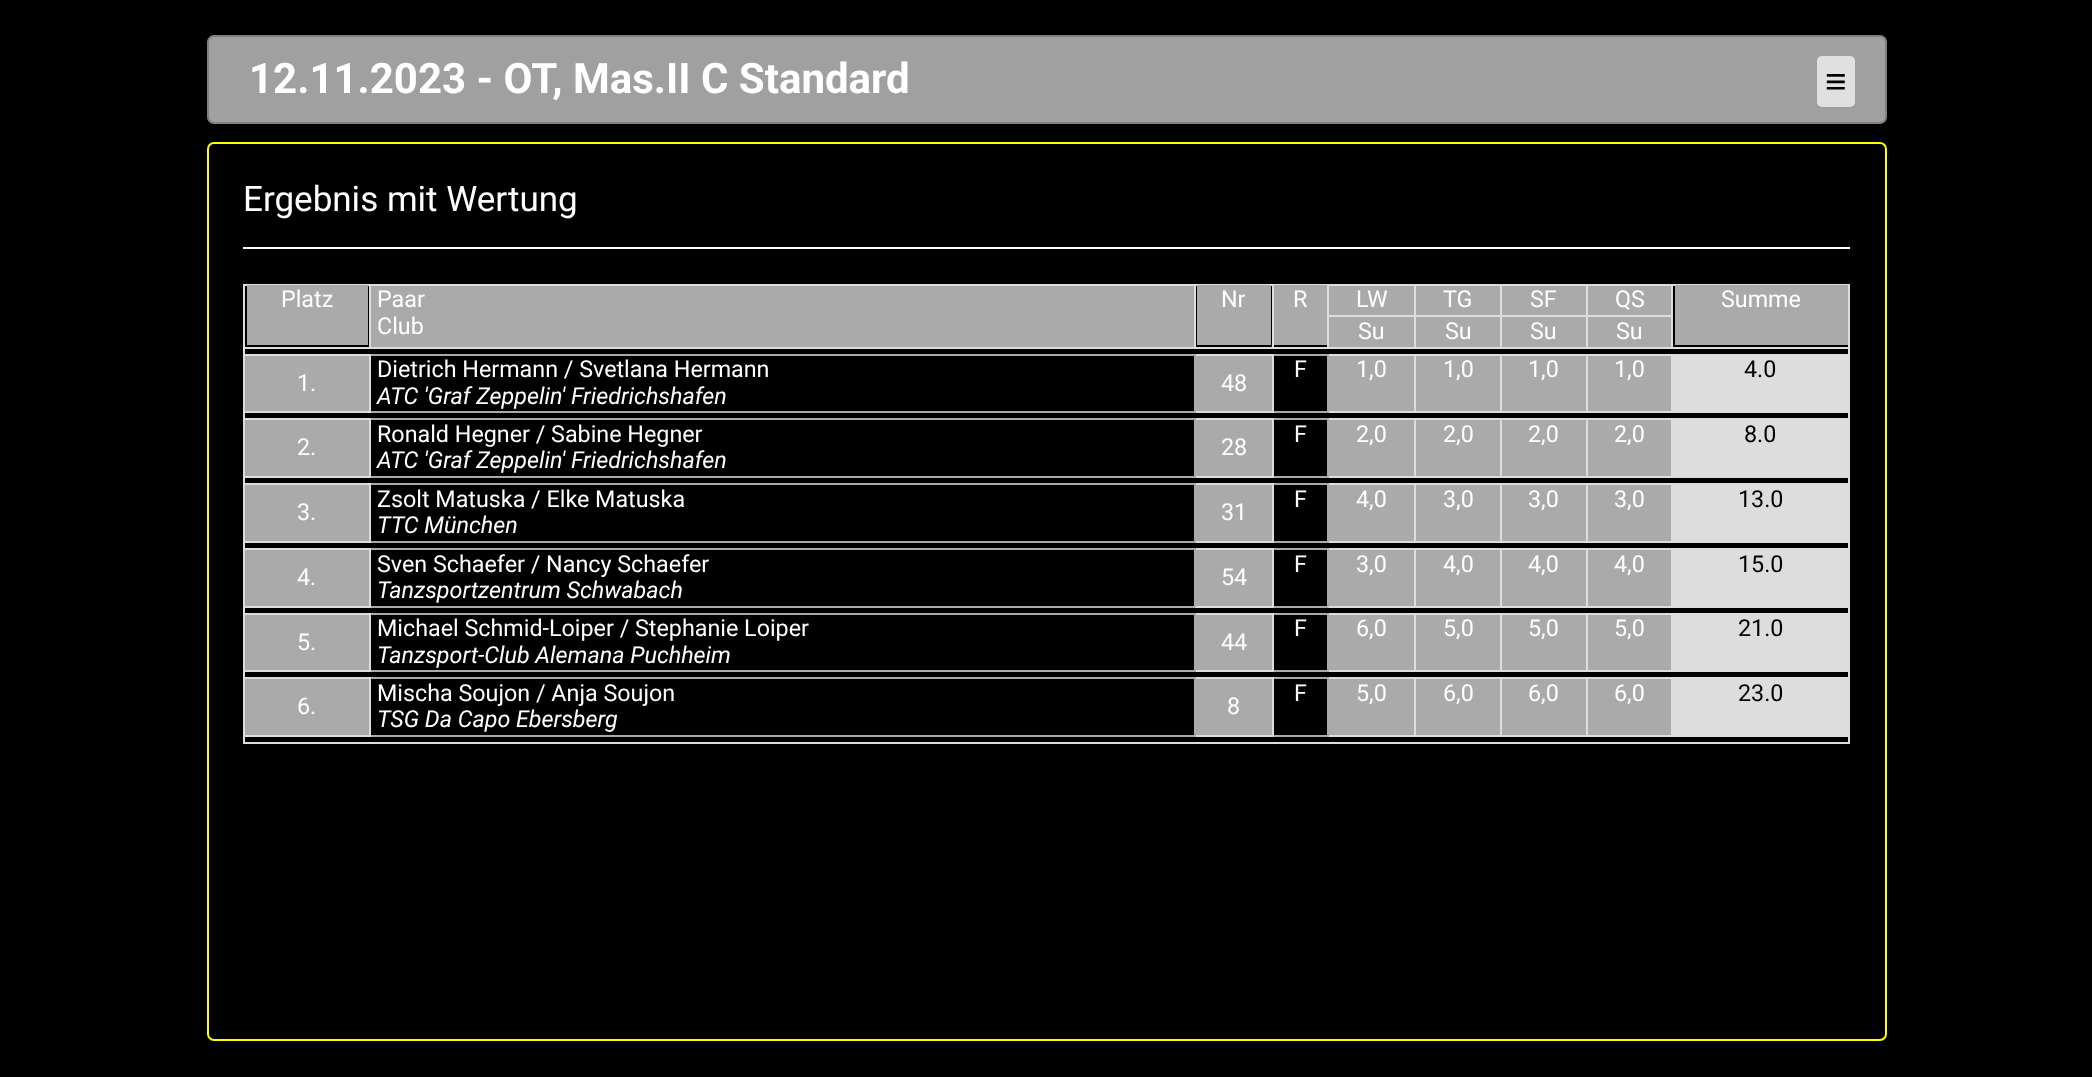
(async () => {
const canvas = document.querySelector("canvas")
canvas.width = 2092
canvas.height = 1077
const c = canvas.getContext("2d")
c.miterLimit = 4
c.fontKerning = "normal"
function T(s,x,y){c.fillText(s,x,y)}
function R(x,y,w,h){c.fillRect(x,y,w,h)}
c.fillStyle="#000"
R(0,0,2092,1077)
c.fillStyle="#a0a0a0"
c.beginPath()
c.roundRect(208,36,1678,87,6)
c.fill()
c.strokeStyle="#808080"
c.lineWidth=2
c.stroke()
c.font="bold 42px Roboto"
c.fillStyle="#fff"
T("12.11.2023 - OT, Mas.II C Standard",249,93)
c.fillStyle="#e0e0e0"
c.beginPath()
c.roundRect(1816,55,40,53,6)
c.fill()
c.strokeStyle="#a0a0a0"
c.stroke()
c.font="bold 37px Liberation Sans"
c.fillStyle="#000"
T("≡",1825,94)
c.beginPath()
c.roundRect(208,143,1678,897,6)
c.strokeStyle="#ff0"
c.stroke()
c.font="35px Roboto"
c.fillStyle="#fff"
T("Ergebnis mit Wertung",243,211)
R(243,247,1607,2)
c.fillStyle="#ddd"
R(243,284,1607,2)
R(1848,284,2,460)
R(243,742,1607,2)
R(243,284,2,460)
R(1586,347,264,2)
R(1586,315,87,2)
R(1586,315,2,33)
R(1500,347,87,2)
R(1500,315,87,2)
R(1500,315,2,33)
R(1414,347,88,2)
R(1414,315,88,2)
R(1414,315,2,33)
R(1327,347,89,2)
R(1327,315,89,2)
R(1327,284,2,64)
R(1272,347,56,2)
R(1272,284,2,64)
R(1194,347,80,2)
R(1194,284,2,64)
R(369,347,826,2)
R(369,284,2,64)
R(243,347,128,2)
c.fillStyle="#aaa"
R(247,285,121,60)
c.font="23.3px Roboto"
c.fillStyle="#fff"
T("Platz",281,307)
c.fillStyle="#aaa"
R(371,286,823,61)
c.fillStyle="#fff"
T("Paar",377,307)
T("Club",377,334)
c.fillStyle="#aaa"
R(1197,285,74,60)
c.fillStyle="#fff"
T("Nr",1221,307)
c.fillStyle="#aaa"
R(1274,285,53,60)
c.fillStyle="#fff"
T("R",1293,307)
c.fillStyle="#aaa"
R(1329,286,85,29)
c.fillStyle="#fff"
T("LW",1356,307)
c.fillStyle="#aaa"
R(1416,286,84,29)
c.fillStyle="#ddd"
R(1414,284,2,33)
c.fillStyle="#fff"
T("TG",1443,307)
c.fillStyle="#aaa"
R(1502,286,84,29)
c.fillStyle="#ddd"
R(1500,284,2,33)
c.fillStyle="#fff"
T("SF",1530,307)
c.fillStyle="#aaa"
R(1588,286,83,29)
c.fillStyle="#ddd"
R(1586,284,2,33)
c.fillStyle="#fff"
T("QS",1615,307)
c.fillStyle="#ddd"
R(1671,284,2,64)
c.fillStyle="#aaa"
R(1675,285,173,60)
c.fillStyle="#fff"
T("Summe",1721,307)
c.fillStyle="#aaa"
R(1329,317,85,30)
c.fillStyle="#fff"
T("Su",1358,339)
c.fillStyle="#aaa"
R(1416,317,84,30)
c.fillStyle="#fff"
T("Su",1445,339)
c.fillStyle="#aaa"
R(1502,317,84,30)
c.fillStyle="#fff"
T("Su",1530,339)
c.fillStyle="#aaa"
R(1588,317,83,30)
c.fillStyle="#fff"
T("Su",1616,339)
c.fillStyle="#ddd"
R(1671,354,179,2)
R(1671,411,179,2)
R(1671,354,2,59)
R(1586,354,87,2)
R(1586,411,87,2)
R(1586,354,2,59)
R(1500,354,87,2)
R(1500,411,87,2)
R(1500,354,2,59)
R(1414,354,88,2)
R(1414,411,88,2)
R(1414,354,2,59)
R(1327,354,89,2)
c.fillStyle="#aaa"
R(1272,354,56,2)
c.fillStyle="#ddd"
R(1194,354,80,2)
c.fillStyle="#aaa"
R(369,354,826,2)
c.fillStyle="#ddd"
R(1327,411,89,2)
c.fillStyle="#aaa"
R(1327,354,2,59)
R(1272,411,56,2)
c.fillStyle="#ddd"
R(1272,354,2,59)
R(1194,411,80,2)
c.fillStyle="#aaa"
R(1194,354,2,59)
R(369,411,826,2)
c.fillStyle="#fff"
T("Dietrich Hermann / Svetlana Hermann",377,377)
c.font="italic 23.3px Roboto"
T("ATC 'Graf Zeppelin' Friedrichshafen",377,404)
c.font="23.3px Roboto"
T("F",1294,377)
c.fillStyle="#aaa"
R(1329,356,85,55)
c.fillStyle="#fff"
T("1,0",1356,377)
c.fillStyle="#aaa"
R(1416,356,84,55)
c.fillStyle="#fff"
T("1,0",1443,377)
c.fillStyle="#aaa"
R(1502,356,84,55)
c.fillStyle="#fff"
T("1,0",1528,377)
c.fillStyle="#aaa"
R(1588,356,83,55)
c.fillStyle="#fff"
T("1,0",1614,377)
c.fillStyle="#ddd"
R(1673,356,175,55)
c.fillStyle="#000"
T("4.0",1744,377)
c.fillStyle="#aaa"
R(245,356,124,55)
c.fillStyle="#ddd"
R(243,354,128,2)
R(369,354,2,59)
R(243,411,128,2)
c.fillStyle="#fff"
T("1.",297,391)
c.fillStyle="#aaa"
R(1196,356,76,55)
c.fillStyle="#fff"
T("48",1221,391)
c.fillStyle="#ddd"
R(1671,418,179,2)
R(1671,476,179,2)
R(1671,418,2,60)
R(1586,418,87,2)
R(1586,476,87,2)
R(1586,418,2,60)
R(1500,418,87,2)
R(1500,476,87,2)
R(1500,418,2,60)
R(1414,418,88,2)
R(1414,476,88,2)
R(1414,418,2,60)
R(1327,418,89,2)
c.fillStyle="#aaa"
R(1272,418,56,2)
c.fillStyle="#ddd"
R(1194,418,80,2)
c.fillStyle="#aaa"
R(369,418,826,2)
c.fillStyle="#ddd"
R(1327,476,89,2)
c.fillStyle="#aaa"
R(1327,418,2,60)
R(1272,476,56,2)
c.fillStyle="#ddd"
R(1272,418,2,60)
R(1194,476,80,2)
c.fillStyle="#aaa"
R(1194,418,2,60)
R(369,476,826,2)
c.fillStyle="#fff"
T("Ronald Hegner / Sabine Hegner",377,442)
c.font="italic 23.3px Roboto"
T("ATC 'Graf Zeppelin' Friedrichshafen",377,468)
c.font="23.3px Roboto"
T("F",1294,442)
c.fillStyle="#aaa"
R(1329,420,85,56)
c.fillStyle="#fff"
T("2,0",1356,442)
c.fillStyle="#aaa"
R(1416,420,84,56)
c.fillStyle="#fff"
T("2,0",1443,442)
c.fillStyle="#aaa"
R(1502,420,84,56)
c.fillStyle="#fff"
T("2,0",1528,442)
c.fillStyle="#aaa"
R(1588,420,83,56)
c.fillStyle="#fff"
T("2,0",1614,442)
c.fillStyle="#ddd"
R(1673,420,175,56)
c.fillStyle="#000"
T("8.0",1744,442)
c.fillStyle="#aaa"
R(245,420,124,56)
c.fillStyle="#ddd"
R(243,418,128,2)
R(369,418,2,60)
R(243,476,128,2)
c.fillStyle="#fff"
T("2.",297,455)
c.fillStyle="#aaa"
R(1196,420,76,56)
c.fillStyle="#fff"
T("28",1221,455)
c.fillStyle="#ddd"
R(1671,483,179,2)
R(1671,541,179,2)
R(1671,483,2,60)
R(1586,483,87,2)
R(1586,541,87,2)
R(1586,483,2,60)
R(1500,483,87,2)
R(1500,541,87,2)
R(1500,483,2,60)
R(1414,483,88,2)
R(1414,541,88,2)
R(1414,483,2,60)
R(1327,483,89,2)
c.fillStyle="#aaa"
R(1272,483,56,2)
c.fillStyle="#ddd"
R(1194,483,80,2)
c.fillStyle="#aaa"
R(369,483,826,2)
c.fillStyle="#ddd"
R(1327,541,89,2)
c.fillStyle="#aaa"
R(1327,483,2,60)
R(1272,541,56,2)
c.fillStyle="#ddd"
R(1272,483,2,60)
R(1194,541,80,2)
c.fillStyle="#aaa"
R(1194,483,2,60)
R(369,541,826,2)
c.fillStyle="#fff"
T("Zsolt Matuska / Elke Matuska",377,507)
c.font="italic 23.3px Roboto"
T("TTC München",377,533)
c.font="23.3px Roboto"
T("F",1294,507)
c.fillStyle="#aaa"
R(1329,485,85,56)
c.fillStyle="#fff"
T("4,0",1356,507)
c.fillStyle="#aaa"
R(1416,485,84,56)
c.fillStyle="#fff"
T("3,0",1443,507)
c.fillStyle="#aaa"
R(1502,485,84,56)
c.fillStyle="#fff"
T("3,0",1528,507)
c.fillStyle="#aaa"
R(1588,485,83,56)
c.fillStyle="#fff"
T("3,0",1614,507)
c.fillStyle="#ddd"
R(1673,485,175,56)
c.fillStyle="#000"
T("13.0",1738,507)
c.fillStyle="#aaa"
R(245,485,124,56)
c.fillStyle="#ddd"
R(243,483,128,2)
R(369,483,2,60)
R(243,541,128,2)
c.fillStyle="#fff"
T("3.",297,520)
c.fillStyle="#aaa"
R(1196,485,76,56)
c.fillStyle="#fff"
T("31",1221,520)
c.fillStyle="#ddd"
R(1671,548,179,2)
R(1671,606,179,2)
R(1671,548,2,59)
R(1586,548,87,2)
R(1586,606,87,2)
R(1586,548,2,59)
R(1500,548,87,2)
R(1500,606,87,2)
R(1500,548,2,59)
R(1414,548,88,2)
R(1414,606,88,2)
R(1414,548,2,59)
R(1327,548,89,2)
c.fillStyle="#aaa"
R(1272,548,56,2)
c.fillStyle="#ddd"
R(1194,548,80,2)
c.fillStyle="#aaa"
R(369,548,826,2)
c.fillStyle="#ddd"
R(1327,606,89,2)
c.fillStyle="#aaa"
R(1327,548,2,59)
R(1272,606,56,2)
c.fillStyle="#ddd"
R(1272,548,2,59)
R(1194,606,80,2)
c.fillStyle="#aaa"
R(1194,548,2,59)
R(369,606,826,2)
c.fillStyle="#fff"
T("Sven Schaefer / Nancy Schaefer",377,572)
c.font="italic 23.3px Roboto"
T("Tanzsportzentrum Schwabach",377,598)
c.font="23.3px Roboto"
T("F",1294,572)
c.fillStyle="#aaa"
R(1329,550,85,56)
c.fillStyle="#fff"
T("3,0",1356,572)
c.fillStyle="#aaa"
R(1416,550,84,56)
c.fillStyle="#fff"
T("4,0",1443,572)
c.fillStyle="#aaa"
R(1502,550,84,56)
c.fillStyle="#fff"
T("4,0",1528,572)
c.fillStyle="#aaa"
R(1588,550,83,56)
c.fillStyle="#fff"
T("4,0",1614,572)
c.fillStyle="#ddd"
R(1673,550,175,56)
c.fillStyle="#000"
T("15.0",1738,572)
c.fillStyle="#aaa"
R(245,550,124,56)
c.fillStyle="#ddd"
R(243,548,128,2)
R(369,548,2,59)
R(243,606,128,2)
c.fillStyle="#fff"
T("4.",297,585)
c.fillStyle="#aaa"
R(1196,550,76,56)
c.fillStyle="#fff"
T("54",1221,585)
c.fillStyle="#ddd"
R(1671,613,179,2)
R(1671,670,179,2)
R(1671,613,2,59)
R(1586,613,87,2)
R(1586,670,87,2)
R(1586,613,2,59)
R(1500,613,87,2)
R(1500,670,87,2)
R(1500,613,2,59)
R(1414,613,88,2)
R(1414,670,88,2)
R(1414,613,2,59)
R(1327,613,89,2)
c.fillStyle="#aaa"
R(1272,613,56,2)
c.fillStyle="#ddd"
R(1194,613,80,2)
c.fillStyle="#aaa"
R(369,613,826,2)
c.fillStyle="#ddd"
R(1327,670,89,2)
c.fillStyle="#aaa"
R(1327,613,2,59)
R(1272,670,56,2)
c.fillStyle="#ddd"
R(1272,613,2,59)
R(1194,670,80,2)
c.fillStyle="#aaa"
R(1194,613,2,59)
R(369,670,826,2)
c.fillStyle="#fff"
T("Michael Schmid-Loiper / Stephanie Loiper",377,636)
c.font="italic 23.3px Roboto"
T("Tanzsport-Club Alemana Puchheim",377,663)
c.font="23.3px Roboto"
T("F",1294,636)
c.fillStyle="#aaa"
R(1329,615,85,55)
c.fillStyle="#fff"
T("6,0",1356,636)
c.fillStyle="#aaa"
R(1416,615,84,55)
c.fillStyle="#fff"
T("5,0",1443,636)
c.fillStyle="#aaa"
R(1502,615,84,55)
c.fillStyle="#fff"
T("5,0",1528,636)
c.fillStyle="#aaa"
R(1588,615,83,55)
c.fillStyle="#fff"
T("5,0",1614,636)
c.fillStyle="#ddd"
R(1673,615,175,55)
c.fillStyle="#000"
T("21.0",1738,636)
c.fillStyle="#aaa"
R(245,615,124,55)
c.fillStyle="#ddd"
R(243,613,128,2)
R(369,613,2,59)
R(243,670,128,2)
c.fillStyle="#fff"
T("5.",297,650)
c.fillStyle="#aaa"
R(1196,615,76,55)
c.fillStyle="#fff"
T("44",1221,650)
c.fillStyle="#ddd"
R(1671,677,179,2)
R(1671,735,179,2)
R(1671,677,2,60)
R(1586,677,87,2)
R(1586,735,87,2)
R(1586,677,2,60)
R(1500,677,87,2)
R(1500,735,87,2)
R(1500,677,2,60)
R(1414,677,88,2)
R(1414,735,88,2)
R(1414,677,2,60)
R(1327,677,89,2)
c.fillStyle="#aaa"
R(1272,677,56,2)
c.fillStyle="#ddd"
R(1194,677,80,2)
c.fillStyle="#aaa"
R(369,677,826,2)
c.fillStyle="#ddd"
R(1327,735,89,2)
c.fillStyle="#aaa"
R(1327,677,2,60)
R(1272,735,56,2)
c.fillStyle="#ddd"
R(1272,677,2,60)
R(1194,735,80,2)
c.fillStyle="#aaa"
R(1194,677,2,60)
R(369,735,826,2)
c.fillStyle="#fff"
T("Mischa Soujon / Anja Soujon",377,701)
c.font="italic 23.3px Roboto"
T("TSG Da Capo Ebersberg",377,727)
c.font="23.3px Roboto"
T("F",1294,701)
c.fillStyle="#aaa"
R(1329,679,85,56)
c.fillStyle="#fff"
T("5,0",1356,701)
c.fillStyle="#aaa"
R(1416,679,84,56)
c.fillStyle="#fff"
T("6,0",1443,701)
c.fillStyle="#aaa"
R(1502,679,84,56)
c.fillStyle="#fff"
T("6,0",1528,701)
c.fillStyle="#aaa"
R(1588,679,83,56)
c.fillStyle="#fff"
T("6,0",1614,701)
c.fillStyle="#ddd"
R(1673,679,175,56)
c.fillStyle="#000"
T("23.0",1738,701)
c.fillStyle="#aaa"
R(245,679,124,56)
c.fillStyle="#ddd"
R(243,677,128,2)
R(369,677,2,60)
R(243,735,128,2)
c.fillStyle="#fff"
T("6.",297,714)
c.fillStyle="#aaa"
R(1196,679,76,56)
c.fillStyle="#fff"
T("8",1227,714)
})()
